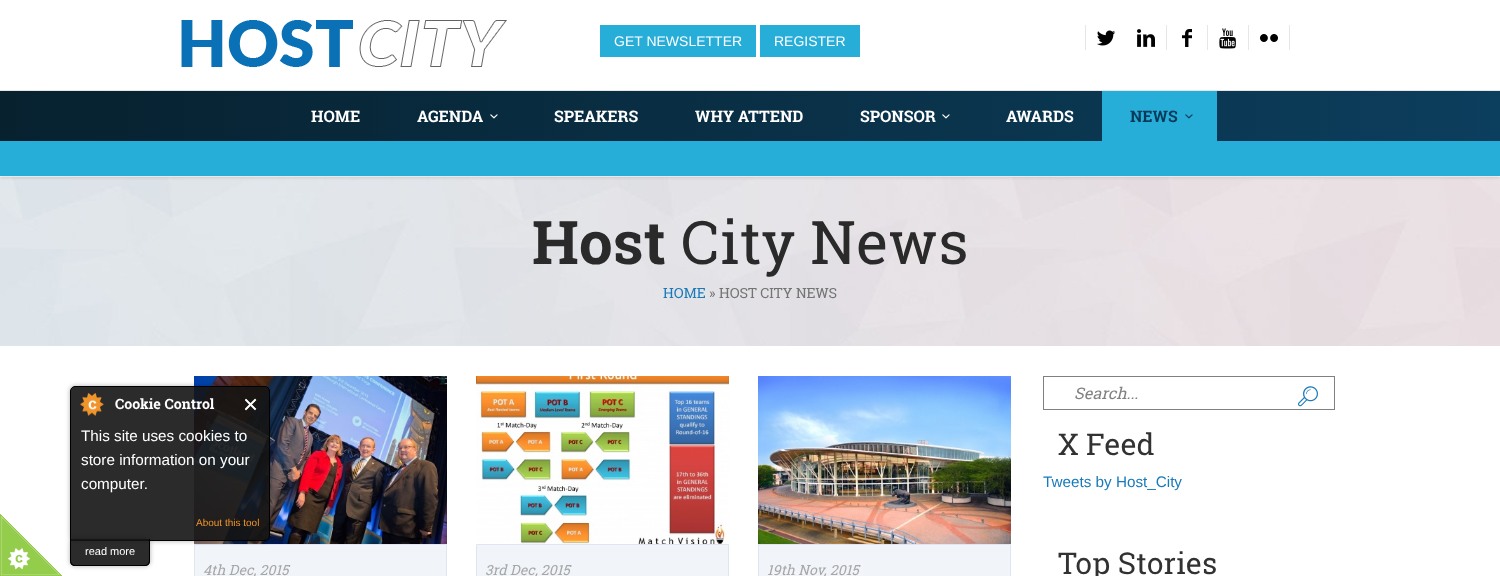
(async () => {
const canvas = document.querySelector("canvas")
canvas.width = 1500
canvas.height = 576
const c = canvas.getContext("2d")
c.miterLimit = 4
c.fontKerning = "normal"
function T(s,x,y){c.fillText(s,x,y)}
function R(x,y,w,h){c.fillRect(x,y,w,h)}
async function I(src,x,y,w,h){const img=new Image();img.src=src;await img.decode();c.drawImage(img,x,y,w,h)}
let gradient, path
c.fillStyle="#fff"
R(0,0,1500,576)
await I("1.png",0,514,62,62)
await I("14.png",194,376,253,168)
c.fillStyle="#f1f4f9"
c.beginPath()
c.rect(194.5,544.5,252,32)
c.fill()
c.strokeStyle="#dfe6f1"
c.stroke()
c.save()
path = new Path2D("M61 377h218v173h-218zm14 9h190c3 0 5 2 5 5v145c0 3-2 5-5 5h-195v-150c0-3 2-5 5-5z")
c.clip(path,"evenodd")
c.fillStyle="#0000004d"
c.filter="blur(2.5px)"
c.beginPath()
c.roundRect(70,386,200,155,5)
c.fill()
c.filter="none"
c.restore()
c.fillStyle="#141414e6"
c.beginPath()
c.roundRect(70.5,386.5,199,154,[4.5,4.5,4.5,0])
c.fill()
c.strokeStyle="#000"
c.stroke()
await I("2.png",80,393,24,23)
c.font="bold 14.25px Roboto Slab"
c.fillStyle="#fff"
T("Cookie Control",115,409)
await I("3.png",245,398,12,13)
c.font="15.25px Liberation Sans"
T("This site uses cookies to",81,441)
T("store information on your",81,465)
T("computer.",81,489)
c.font="10px Liberation Sans"
c.fillStyle="#f0942b"
T("About this tool",196,526)
c.save()
path = new Path2D("M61 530h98v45h-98zm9 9h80v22c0 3-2 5-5 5h-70c-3 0-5-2-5-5z")
c.clip(path,"evenodd")
c.fillStyle="#0000004d"
c.filter="blur(2.5px)"
c.beginPath()
c.roundRect(70,539,80,27,5)
c.fill()
c.filter="none"
c.restore()
c.fillStyle="#141414e6"
c.beginPath()
c.roundRect(70,539,80,27,[0,0,5,5])
c.fill()
c.fillStyle="#000"
path = new Path2D("M70 539h80v22c0 3-2 5-5 5h-70c-3 0-5-2-5-5zm1 0h78v22c0 2-2 4-4 4h-70c-2 0-4-2-4-4z")
c.fill(path,"evenodd")
c.font="11px Liberation Sans"
c.fillStyle="#fff"
T("read more",85,555)
c.fillStyle="#e6e6e6"
R(0,90,1500,1)
await I("4.png",181,20,326,47)
c.fillStyle="#26aed8"
R(600,25,156,32)
c.font="14px Liberation Sans"
c.fillStyle="#fff"
T("GET NEWSLETTER",614,46)
c.fillStyle="#26aed8"
R(760,25,100,32)
c.fillStyle="#fff"
T("REGISTER",774,46)
c.fillStyle="#e6e6e6"
R(1085,25,1,25)
await I("5.png",1097,30,19,16)
R(1166,25,1,25)
await I("6.png",1137,29,18,18)
R(1207,25,1,25)
await I("7.png",1182,29,10,18)
R(1248,25,1,25)
await I("8.png",1219,28,17,21)
R(1289,25,1,25)
await I("9.png",1260,34,18,8)
gradient = c.createLinearGradient(0,134,1500,133)
gradient.addColorStop(0,"#07212f")
gradient.addColorStop(1,"#0c3e5d")
c.fillStyle = gradient
R(0,91,1500,50)
c.font="bold 16px Roboto Slab"
c.fillStyle="#fff"
T("HOME",311,122)
T("AGENDA",417,122)
await I("10.png",490,114,8,5)
T("SPEAKERS",554,122)
T("WHY ATTEND",695,122)
T("SPONSOR",860,122)
await I("11.png",942,114,8,5)
T("AWARDS",1006,122)
await I("13.png",0,177,1500,169)
c.fillStyle="#0000001a"
c.filter="blur(1.5px)"
c.beginPath()
c.rect(0,143,1500,35)
c.fill()
c.filter="none"
c.fillStyle="#26aed8"
R(1102,91,115,50)
c.fillStyle="#093a5a"
T("NEWS",1130,122)
await I("12.png",1185,114,8,5)
c.fillStyle="#26aed8"
R(0,141,1500,35)
c.font="bold 60px Roboto Slab"
c.fillStyle="#2a2a2a"
T("Host",532,264)
c.font="60px Roboto Slab"
T("City News",681,264)
c.font="14px Roboto Slab"
c.fillStyle="#187bb9"
T("HOME",663,298)
c.fillStyle="#747474"
T("» HOST CITY NEWS",709,298)
c.font="italic 14px Roboto Slab"
c.fillStyle="#a7a7a7"
T("4th Dec, 2015",203,575)
await I("15.png",476,376,253,168)
c.fillStyle="#f1f4f9"
c.beginPath()
c.rect(476.5,544.5,252,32)
c.fill()
c.strokeStyle="#dfe6f1"
c.stroke()
c.fillStyle="#a7a7a7"
T("3rd Dec, 2015",485,575)
await I("16.png",758,376,253,168)
c.fillStyle="#f1f4f9"
c.beginPath()
c.rect(758.5,544.5,252,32)
c.fill()
c.stroke()
c.fillStyle="#a7a7a7"
T("19th Nov, 2015",767,575)
c.strokeStyle="#808080"
c.strokeRect(1043.5,376.5,291,33)
c.font="italic 16px Roboto Slab"
c.fillStyle="#818181"
T("Search...",1074,399)
await I("17.png",1298,386,20,21)
c.font="30px Roboto Slab"
c.fillStyle="#323232"
T("X Feed",1058,455)
c.font="15.25px Liberation Sans"
c.fillStyle="#187bb9"
T("Tweets by Host_City",1043,487)
c.font="30px Roboto Slab"
c.fillStyle="#323232"
T("Top Stories",1058,574)
})()
